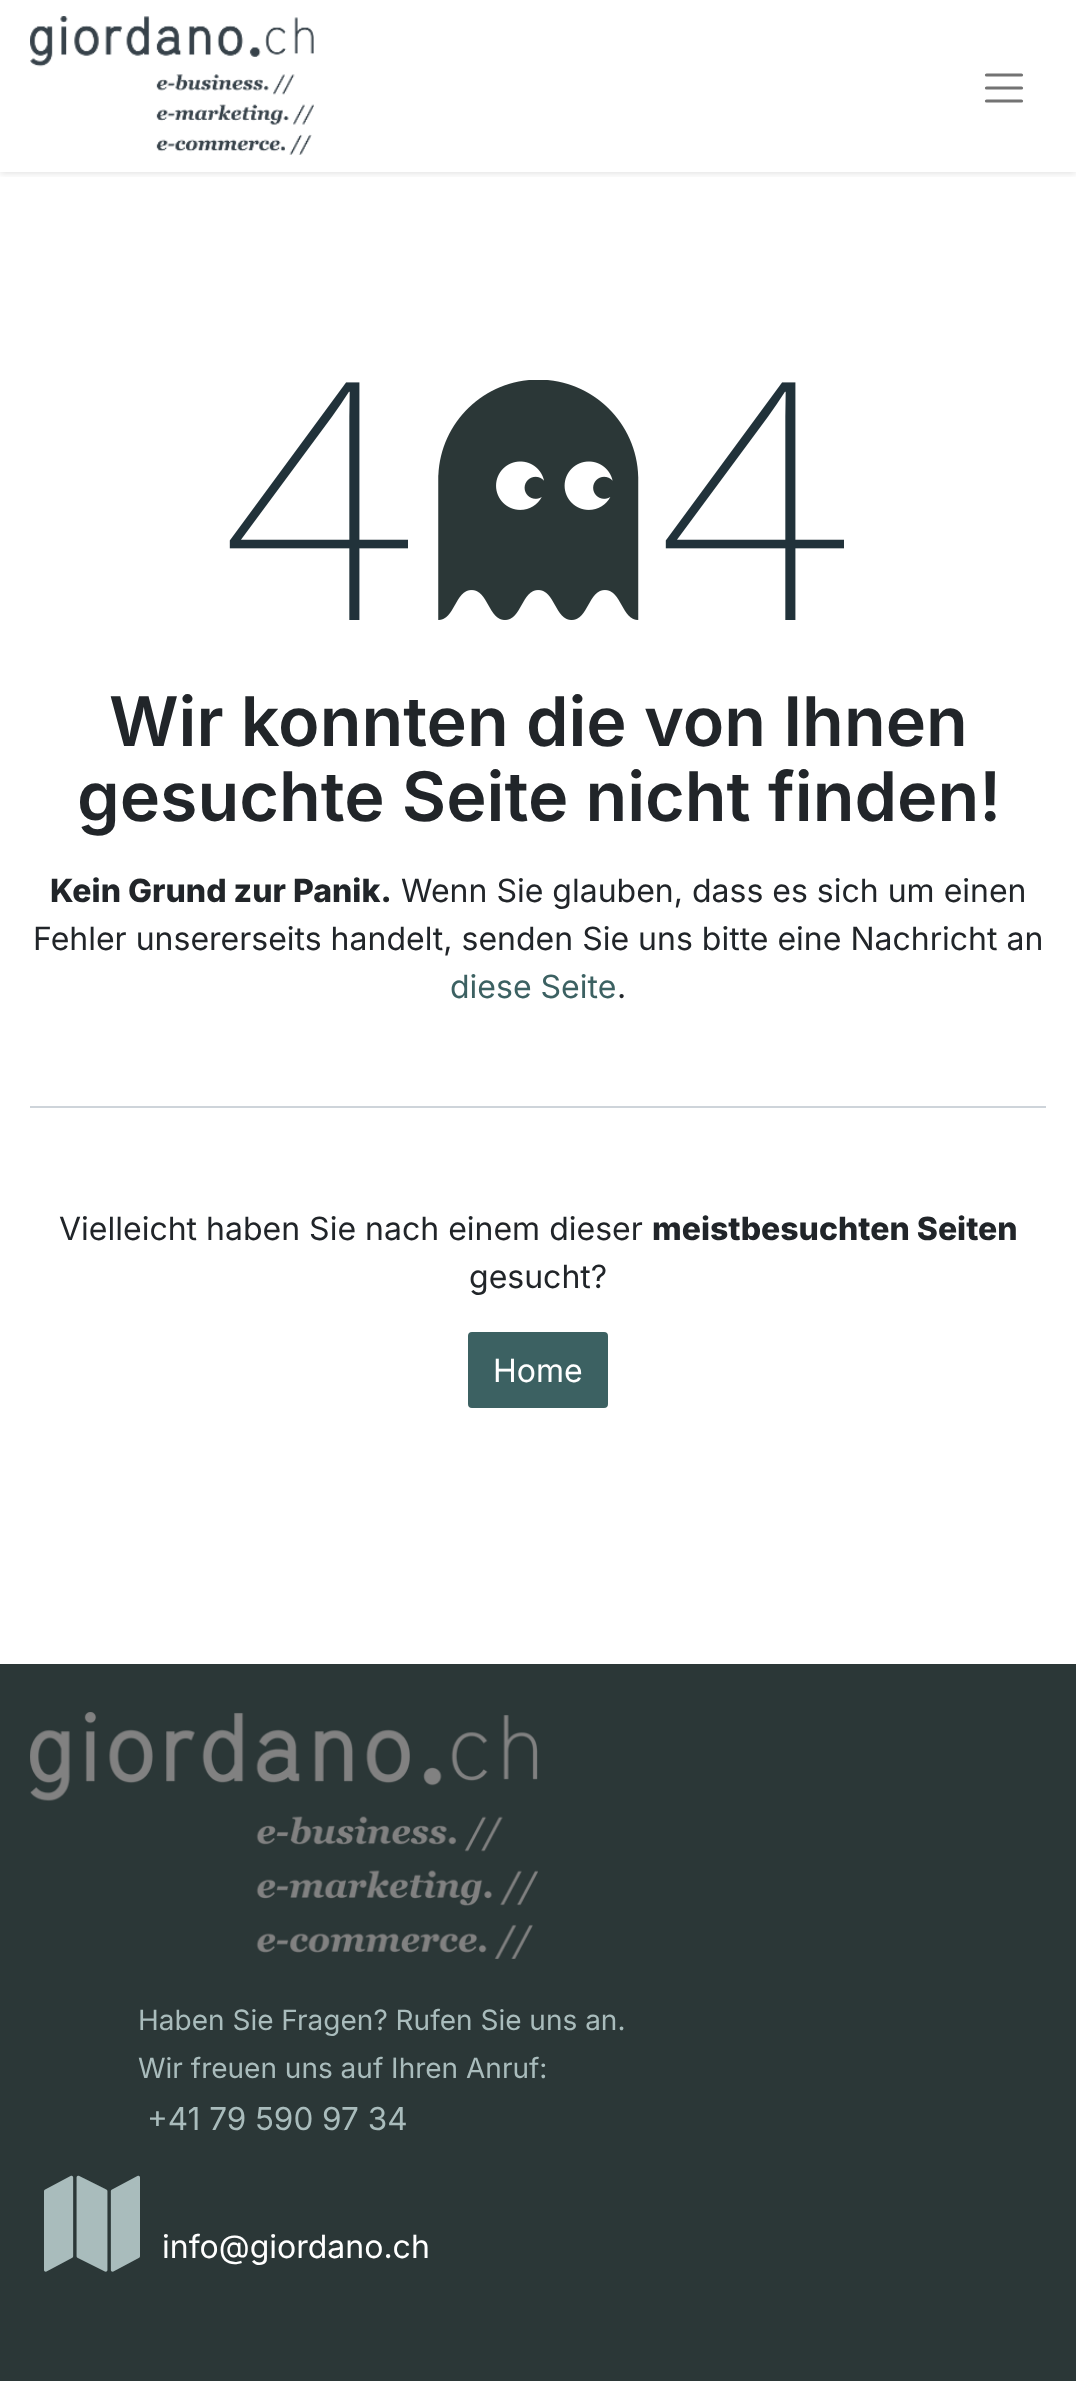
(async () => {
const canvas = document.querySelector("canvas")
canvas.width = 1076
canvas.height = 2381
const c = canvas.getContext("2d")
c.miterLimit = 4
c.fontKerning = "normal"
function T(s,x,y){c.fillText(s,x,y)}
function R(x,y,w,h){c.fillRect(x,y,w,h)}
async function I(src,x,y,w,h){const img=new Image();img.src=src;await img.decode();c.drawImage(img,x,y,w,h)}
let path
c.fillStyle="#fff"
R(0,0,1076,2381)
c.save()
c.beginPath()
c.rect(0,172,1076,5)
c.clip()
c.fillStyle="#0000001a"
c.filter="blur(3px)"
c.beginPath()
c.rect(0,2,1076,172)
c.fill()
c.filter="none"
c.restore()
await I("1.png",30,16,284,139)
path = new Path2D("M986.5 75h35m-35 13h35m-35 13h35")
c.strokeStyle="#737373"
c.lineWidth=3.2
c.lineCap="round"
c.stroke(path)
await I("2.png",229,380,615,240)
c.font="600 68.25px Inter"
c.fillStyle="#212529"
T("Wir konnten die von Ihnen",109,746)
T("gesuchte Seite nicht finden!",77,821)
c.font="800 32px Inter"
T("Kein Grund zur Panik.",50,902)
c.font="32px Inter"
T("Wenn Sie glauben, dass es sich um einen",401,902)
T("Fehler unsererseits handelt, senden Sie uns bitte eine Nachricht an",33,950)
c.fillStyle="#3c6162"
T("diese Seite",450,998)
c.fillStyle="#212529"
T(".",617,998)
c.fillStyle="#ced4da"
R(30,1106,1016,2)
c.fillStyle="#212529"
T("Vielleicht haben Sie nach einem dieser",59,1240)
c.font="800 32px Inter"
T("meistbesuchten Seiten",652,1240)
c.font="32px Inter"
T("gesucht?",469,1288)
c.fillStyle="#3c6162"
c.beginPath()
c.roundRect(469,1333,138,74,3)
c.fill()
c.strokeStyle="#3c6162"
c.lineWidth=2
c.stroke()
c.fillStyle="#fff"
T("Home",493,1382)
c.fillStyle="#2b3737"
R(0,1664,1076,717)
await I("3.png",30,1712,508,247)
c.font="28px Inter"
c.fillStyle="#a9bcbc"
T("Haben Sie Fragen? Rufen Sie uns an.",138,2030)
T("Wir freuen uns auf Ihren Anruf:",138,2078)
c.font="31.5px Inter"
T("+41 79 590 97 34",147,2130)
await I("4.png",44,2175,96,97)
c.font="32px Inter"
c.fillStyle="#fff"
T("info@giordano.ch",162,2258)
})()
